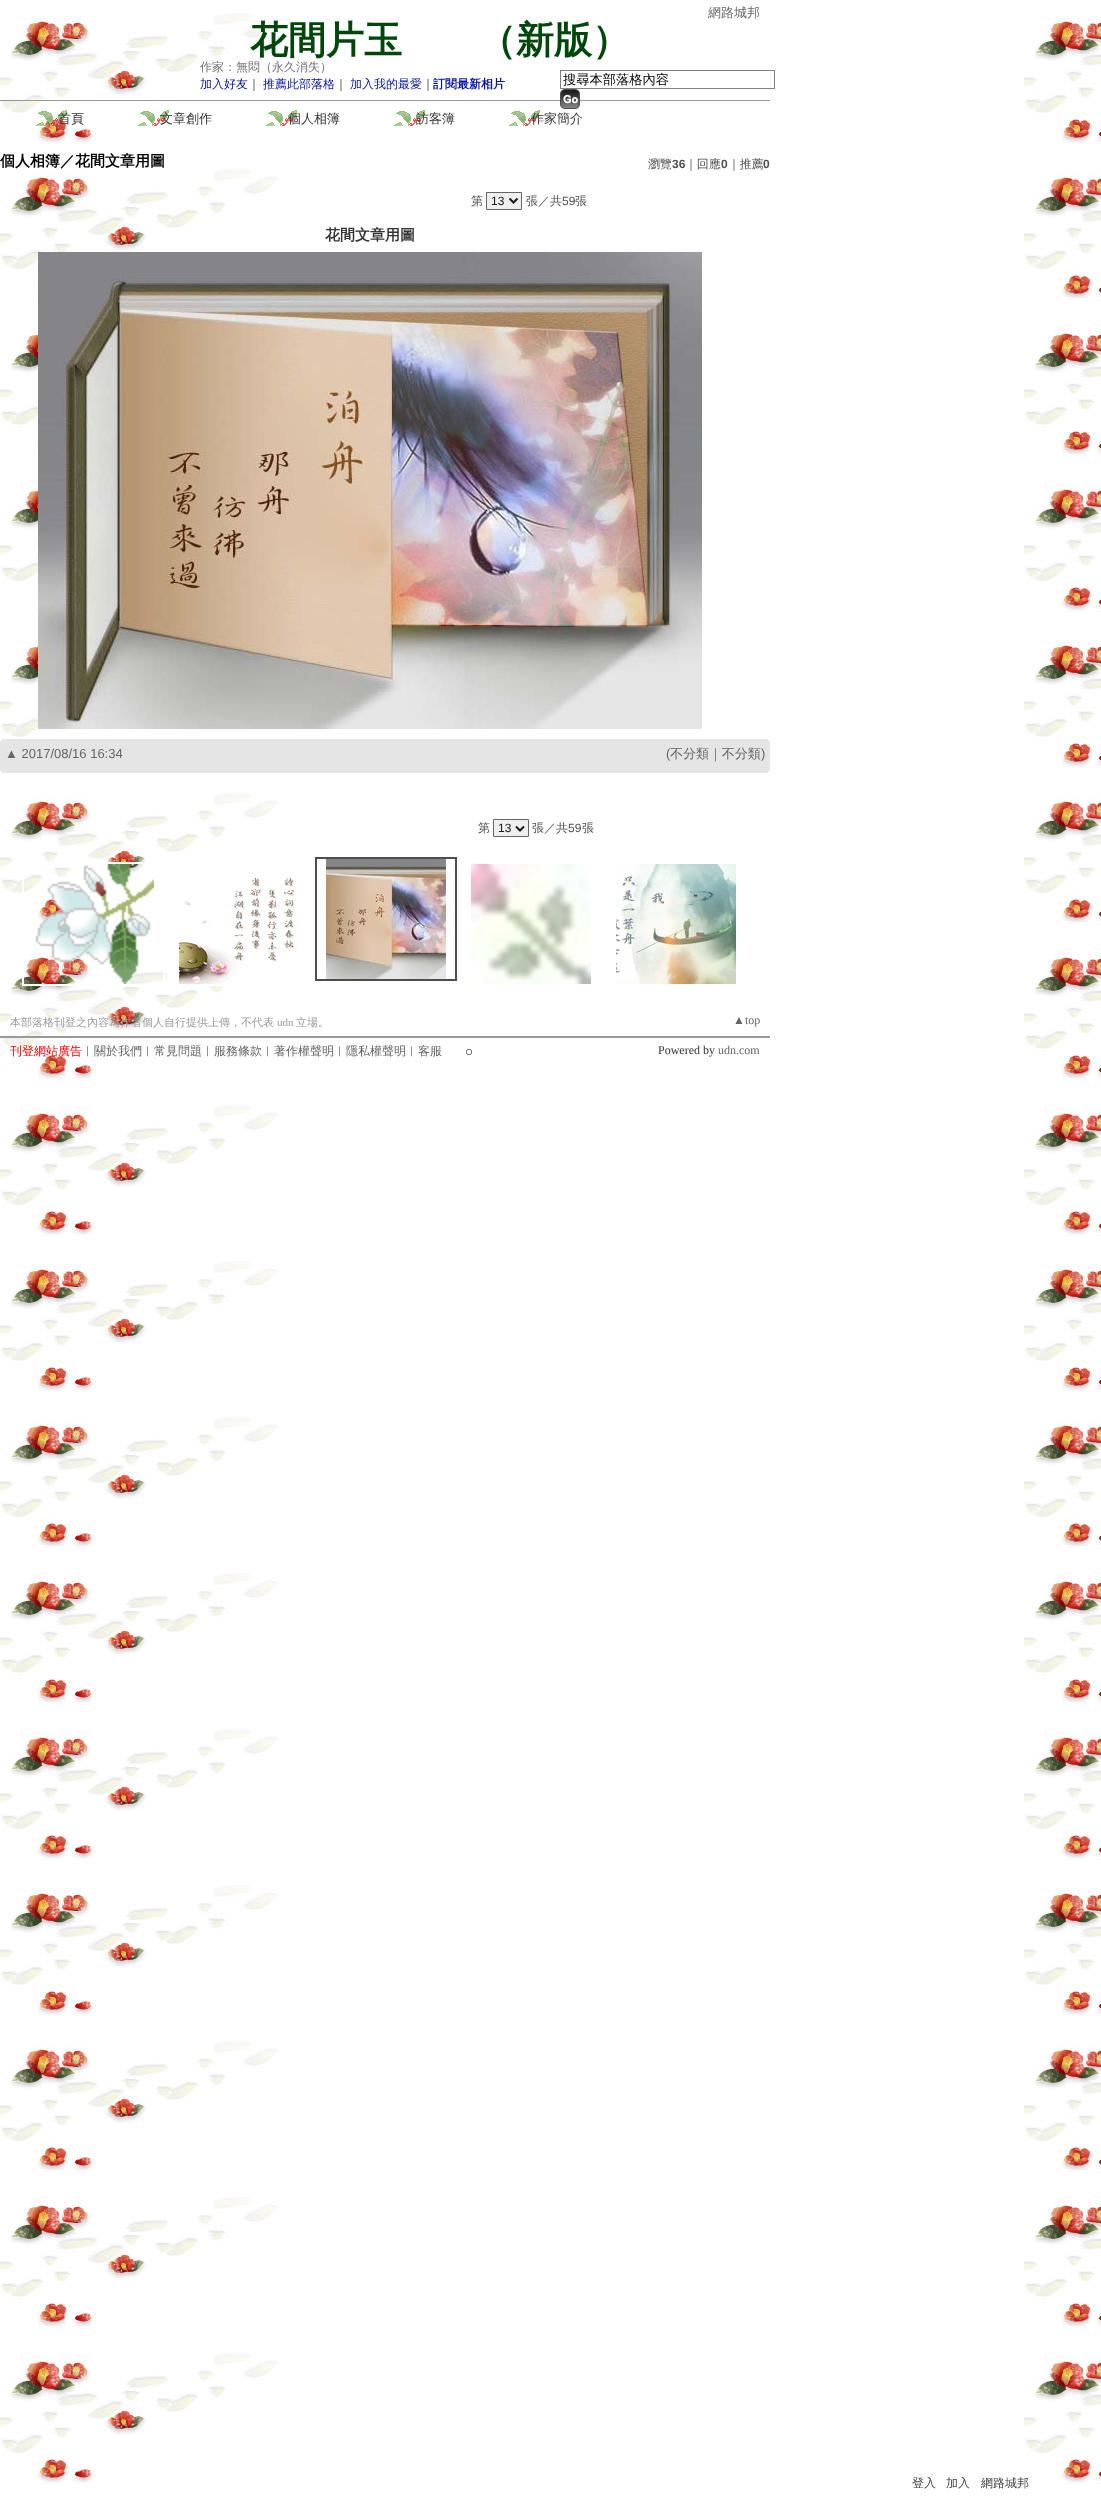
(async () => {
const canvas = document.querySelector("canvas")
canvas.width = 1101
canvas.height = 2498
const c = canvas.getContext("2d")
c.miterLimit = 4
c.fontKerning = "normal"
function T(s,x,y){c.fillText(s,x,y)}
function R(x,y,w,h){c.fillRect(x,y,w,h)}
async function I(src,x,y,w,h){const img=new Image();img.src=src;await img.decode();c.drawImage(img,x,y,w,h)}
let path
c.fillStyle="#fff"
R(0,0,1101,2498)
await I("1.png",0,13,1101,2471)
c.font="500 13px WenQuanYi Zen Hei"
c.fillStyle="#666"
T("網路城邦",708,17)
c.font="bold 38px WenQuanYi Zen Hei"
c.fillStyle="#01460a"
T("花間片玉",250,53)
T("（新版）",478,53)
c.font="500 12px WenQuanYi Zen Hei"
c.fillStyle="#6f706f"
T("作家：無悶（永久消失）",200,71)
c.fillStyle="#03159b"
T("加入好友",200,88)
c.fillStyle="#333"
T("｜",248,88)
c.fillStyle="#03159b"
T("推薦此部落格",263,88)
c.fillStyle="#333"
T("｜",335,88)
c.fillStyle="#03159b"
T("加入我的最愛",350,88)
c.fillStyle="#333"
T("｜",422,88)
c.font="bold 12px WenQuanYi Zen Hei"
c.fillStyle="#03159b"
T("訂閱最新相片",433,88)
c.strokeStyle="#808080"
c.strokeRect(560.5,70.5,214,18)
c.font="500 13.25px WenQuanYi Zen Hei"
c.fillStyle="#000"
T("搜尋本部落格內容",563,84)
c.fillStyle="#999"
R(0,100,770,1)
await I("2.png",560,89,20,20)
await I("3.png",36,110,31,16)
c.font="500 13px WenQuanYi Zen Hei"
c.fillStyle="#333"
T("首頁",58,123)
await I("4.png",138,110,31,16)
T("文章創作",160,123)
await I("4.png",266,110,31,16)
T("個人相簿",288,123)
await I("4.png",394,110,31,16)
T("訪客簿",416,123)
await I("4.png",509,110,31,16)
T("作家簡介",531,123)
c.font="bold 15px WenQuanYi Zen Hei"
c.fillStyle="#000"
T("個人相簿／花間文章用圖",0,166)
c.font="500 12px WenQuanYi Zen Hei"
c.fillStyle="#4d4d4d"
T("瀏覽",648,168)
c.font="bold 12px Liberation Sans"
T("36",672,168)
c.font="500 12px WenQuanYi Zen Hei"
T("｜回應",685,168)
c.font="bold 12px Liberation Sans"
T("0",721,168)
c.font="500 12px WenQuanYi Zen Hei"
T("｜推薦",728,168)
c.font="bold 12px Liberation Sans"
T("0",763,168)
c.font="500 12px WenQuanYi Zen Hei"
T("第",471,205)
c.fillStyle="#efefef"
c.beginPath()
c.rect(486.5,192.5,35,17)
c.fill()
c.strokeStyle="#666"
c.stroke()
path = new Path2D("M509.5 198.5l4 4l4-4")
c.strokeStyle="#1a1a1a"
c.lineWidth=2
c.stroke(path)
c.font="12px Liberation Sans"
c.fillStyle="#1a1a1a"
T("13",491,205)
c.font="500 12px WenQuanYi Zen Hei"
c.fillStyle="#4d4d4d"
T("張／共",526,205)
c.font="12px Liberation Sans"
T("59",562,205)
c.font="500 12px WenQuanYi Zen Hei"
T("張",575,205)
c.font="bold 15px WenQuanYi Zen Hei"
c.fillStyle="#333"
T("花間文章用圖",325,240)
await I("5.png",38,252,664,477)
await I("6.png",0,739,5,5)
c.fillStyle="#e5e5e5"
R(5,739,760,5)
await I("7.png",765,739,5,5)
R(0,744,770,24)
c.font="13px Liberation Sans"
c.fillStyle="#666"
T("▲ 2017/08/16 16:34",5,758)
T("(",666,758)
c.font="500 13px WenQuanYi Zen Hei"
T("不分類｜不分類",670,758)
c.font="13px Liberation Sans"
T(")",761,758)
await I("8.png",0,768,5,5)
c.fillStyle="#e5e5e5"
R(5,768,760,5)
await I("9.png",765,768,5,5)
c.font="500 12px WenQuanYi Zen Hei"
c.fillStyle="#4d4d4d"
T("第",478,832)
c.fillStyle="#efefef"
c.beginPath()
c.rect(493.5,819.5,35,17)
c.fill()
c.strokeStyle="#666"
c.lineWidth=1
c.stroke()
path = new Path2D("M516 826.5l4 4l4-4")
c.strokeStyle="#1a1a1a"
c.lineWidth=2
c.stroke(path)
c.font="12px Liberation Sans"
c.fillStyle="#1a1a1a"
T("13",498,832)
c.font="500 12px WenQuanYi Zen Hei"
c.fillStyle="#4d4d4d"
T("張／共",532,832)
c.font="12px Liberation Sans"
T("59",568,832)
c.font="500 12px WenQuanYi Zen Hei"
T("張",582,832)
c.strokeStyle="#fff"
c.strokeRect(23,863,141,122)
await I("10.png",35,864,119,120)
c.strokeRect(169,863,141,122)
await I("11.png",179,873,120,111)
c.strokeStyle="#4d4d4d"
c.strokeRect(316,858,140,122)
await I("12.png",326,859,120,120)
await I("13.png",471,864,120,120)
await I("14.png",616,864,120,120)
c.fillStyle="#999"
R(0,1036,770,2)
c.font="500 11px WenQuanYi Zen Hei"
T("本部落格刊登之內容為作者個人自行提供上傳，不代表",10,1026)
c.font="11px Liberation Serif"
T("udn",277,1026)
c.font="500 11px WenQuanYi Zen Hei"
T("立場。",296,1026)
c.font="12px Liberation Serif"
c.fillStyle="#666"
T("▲top",733,1024)
c.font="500 12px WenQuanYi Zen Hei"
c.fillStyle="#f00"
T("刊登網站廣告",10,1055)
c.fillStyle="#333"
T("︱",82,1055)
c.fillStyle="#666"
T("關於我們",94,1055)
c.fillStyle="#333"
T("︱",142,1055)
c.fillStyle="#666"
T("常見問題",154,1055)
c.fillStyle="#333"
T("︱",202,1055)
c.fillStyle="#666"
T("服務條款",214,1055)
c.fillStyle="#333"
T("︱",262,1055)
c.fillStyle="#666"
T("著作權聲明",274,1055)
c.fillStyle="#333"
T("︱",334,1055)
c.fillStyle="#666"
T("隱私權聲明",346,1055)
c.fillStyle="#333"
T("︱",406,1055)
c.fillStyle="#666"
T("客服",418,1055)
c.beginPath()
c.roundRect(466.5,1049.5,5,5,1.5)
c.strokeStyle="#767676"
c.lineWidth=1
c.stroke()
c.font="12px Liberation Serif"
c.fillStyle="#333"
T("Powered by",658,1054)
c.fillStyle="#666"
T("udn.com",718,1054)
c.font="500 12px WenQuanYi Zen Hei"
c.fillStyle="#444"
T("登入",912,2487)
T("加入",946,2487)
T("網路城邦",981,2487)
})()
